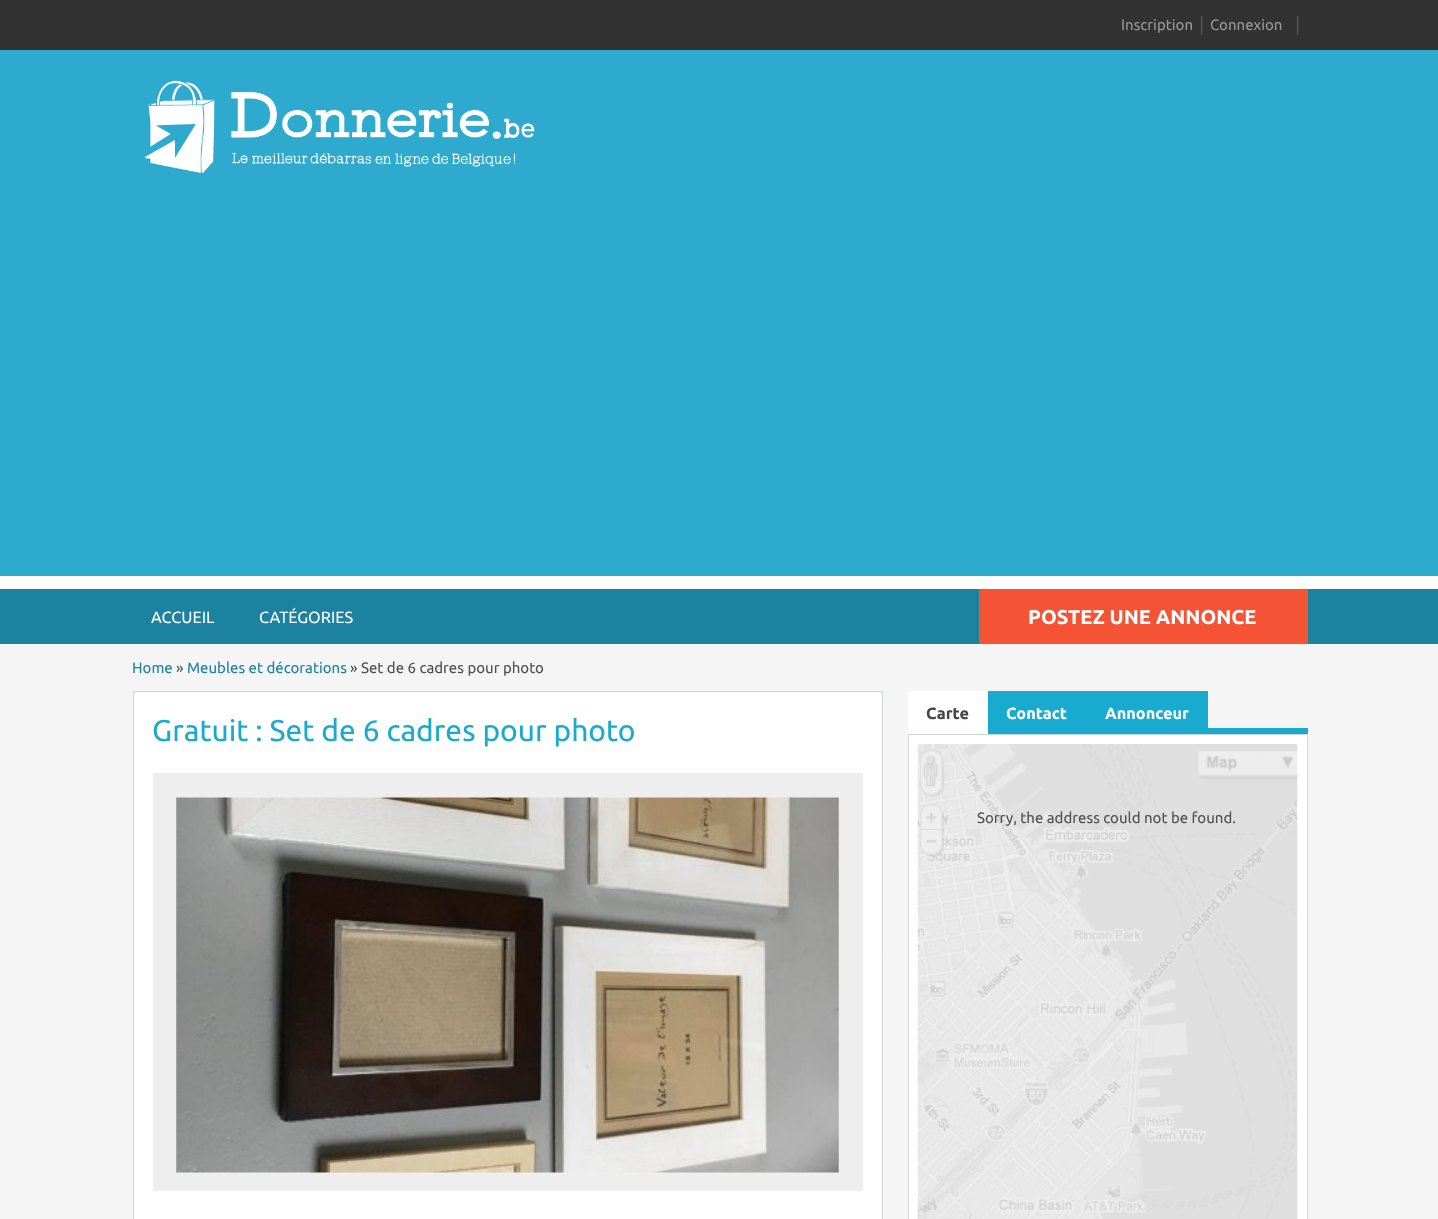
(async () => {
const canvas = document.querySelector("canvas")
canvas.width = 1438
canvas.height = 1219
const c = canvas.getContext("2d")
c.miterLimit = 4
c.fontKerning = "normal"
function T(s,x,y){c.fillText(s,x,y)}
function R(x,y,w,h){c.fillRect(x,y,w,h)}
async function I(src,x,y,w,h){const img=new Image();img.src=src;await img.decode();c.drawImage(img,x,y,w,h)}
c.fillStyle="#fff"
R(0,0,1438,1219)
c.fillStyle="#323232"
R(0,0,1438,50)
c.font="15px Ubuntu"
c.fillStyle="#999"
T("Inscription",1121,30)
c.font="19px Ubuntu"
c.fillStyle="#4f4f4f"
T("|",1199,31)
c.font="15px Ubuntu"
c.fillStyle="#999"
T("Connexion",1210,30)
c.font="19px Ubuntu"
c.fillStyle="#4f4f4f"
T("|",1295,31)
c.fillStyle="#2daacd"
R(0,50,1438,526)
await I("1.png",144,80,391,94)
c.fillStyle="#1b83a0"
R(0,589,1438,55)
c.font="16.25px Ubuntu"
c.fillStyle="#fff"
T("ACCUEIL",151,623)
T("CATÉGORIES",259,623)
c.fillStyle="#f45435"
R(979,589,329,55)
c.font="bold 20px Ubuntu"
c.fillStyle="#fff"
T("POSTEZ UNE ANNONCE",1028,624)
c.fillStyle="#f5f5f5"
R(0,644,1438,575)
c.font="15px Ubuntu"
c.fillStyle="#1b83a0"
T("Home",132,673)
c.fillStyle="#4f4f4f"
T("»",176,673)
c.fillStyle="#1b83a0"
T("Meubles et décorations",187,673)
c.fillStyle="#4f4f4f"
T("» Set de 6 cadres pour photo",350,673)
c.fillStyle="#fff"
c.beginPath()
c.rect(133.5,691.5,749,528)
c.fill()
c.strokeStyle="#cbd8d8"
c.stroke()
c.font="30px Ubuntu"
c.fillStyle="#19aacf"
T("Gratuit : Set de 6 cadres pour photo",152,741)
c.fillStyle="#eee"
R(153,773,710,418)
await I("2.png",176,797,663,376)
c.fillStyle="#fff"
R(908,691,80,43)
c.font="bold 16.25px Ubuntu"
c.fillStyle="#454545"
T("Carte",926,719)
c.fillStyle="#19aacf"
R(988,691,220,43)
c.fillStyle="#fff"
T("Contact",1006,719)
T("Annonceur",1105,719)
c.fillStyle="#19aacf"
R(1208,728,100,6)
c.fillStyle="#fff"
c.beginPath()
c.rect(908.5,734.5,399,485)
c.fill()
c.stroke()
await I("3.png",917,744,381,475)
c.font="15px Ubuntu"
c.fillStyle="#4f4f4f"
T("Sorry, the address could not be found.",977,823)
})()
